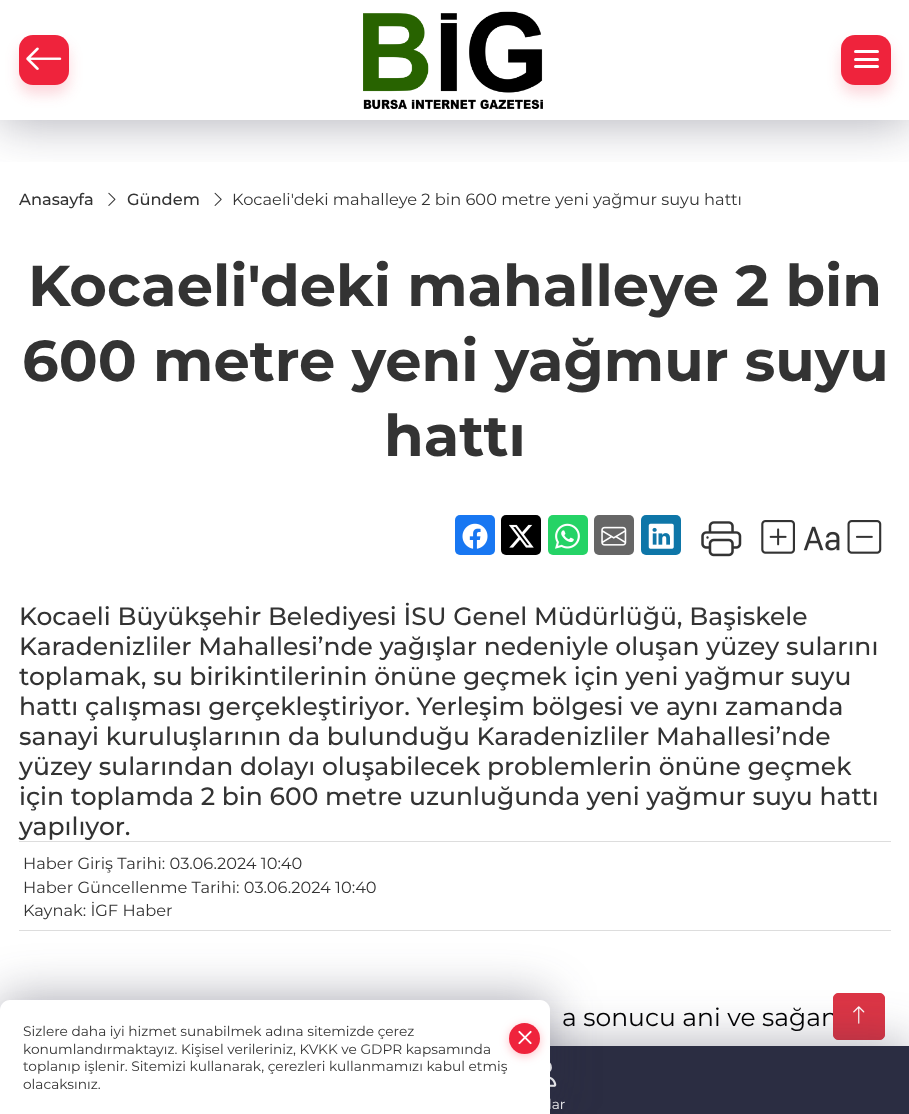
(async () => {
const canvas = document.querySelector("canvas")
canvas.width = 909
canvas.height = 1114
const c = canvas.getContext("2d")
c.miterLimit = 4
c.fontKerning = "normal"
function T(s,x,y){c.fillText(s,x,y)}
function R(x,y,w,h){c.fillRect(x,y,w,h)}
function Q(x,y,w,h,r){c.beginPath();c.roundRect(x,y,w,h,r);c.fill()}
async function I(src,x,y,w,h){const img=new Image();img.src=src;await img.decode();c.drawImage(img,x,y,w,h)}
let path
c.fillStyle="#fff"
R(0,0,909,1114)
await I("3.png",108,192,8,14)
await I("4.png",214,192,8,14)
c.save()
c.beginPath()
c.rect(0,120,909,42)
c.clip()
c.fillStyle="#2b2d425c"
c.filter="blur(24px)"
c.beginPath()
c.rect(0,4,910,120)
c.fill()
c.filter="none"
c.restore()
c.fillStyle="#ef233c2e"
c.filter="blur(7px)"
c.beginPath()
c.roundRect(19,44,50,50,14)
c.fill()
c.filter="none"
c.fillStyle="#ef233c"
Q(19,35,50,50,14)
await I("1.png",26,47,36,23)
await I("2.png",363,11,180,98)
c.fillStyle="#ef233c2e"
c.filter="blur(7px)"
c.beginPath()
c.roundRect(841,44,50,50,14)
c.fill()
c.filter="none"
c.fillStyle="#ef233c"
Q(841,35,50,50,14)
c.fillStyle="#fff"
Q(854,58,25,3,1.5)
Q(854,50,25,3,1.5)
Q(854,65,25,3,1.5)
c.font="500 16.25px Montserrat"
c.fillStyle="#333"
T("Anasayfa",19,205)
T("Gündem",127,205)
c.font="16.25px Montserrat"
T("Kocaeli'deki mahalleye 2 bin 600 metre yeni yağmur suyu hattı",232,205)
c.font="bold 57.5px Montserrat"
T("Kocaeli'deki mahalleye 2 bin",28,306)
T("600 metre yeni yağmur suyu",22,381)
T("hattı",384,456)
c.fillStyle="#1877f2"
Q(455,515,40,40,5)
await I("5.png",462,523,26,26)
c.fillStyle="#000"
Q(501,515,40,40,5)
await I("6.png",509,524,25,24)
c.fillStyle="#25d366"
Q(548,515,40,40,5)
await I("7.png",555,523,25,26)
c.fillStyle="#666"
Q(594,515,40,40,5)
await I("8.png",601,526,26,20)
c.fillStyle="#0e76a8"
Q(641,515,40,40,5)
await I("9.png",648,523,26,26)
await I("10.png",701,521,41,36)
await I("11.png",761,520,34,34)
await I("12.png",803,526,37,25)
await I("13.png",847,520,35,34)
c.font="500 25px Montserrat"
c.fillStyle="#333"
T("Kocaeli Büyükşehir Belediyesi İSU Genel Müdürlüğü, Başiskele",19,625)
T("Karadenizliler Mahallesi’nde yağışlar nedeniyle oluşan yüzey sularını",19,655)
T("toplamak, su birikintilerinin önüne geçmek için yeni yağmur suyu",19,685)
T("hattı çalışması gerçekleştiriyor. Yerleşim bölgesi ve aynı zamanda",19,715)
T("sanayi kuruluşlarının da bulunduğu Karadenizliler Mahallesi’nde",19,745)
T("yüzey sularından dolayı oluşabilecek problemlerin önüne geçmek",19,775)
T("için toplamda 2 bin 600 metre uzunluğunda yeni yağmur suyu hattı",19,805)
T("yapılıyor.",19,835)
c.fillStyle="#ddd"
R(19,841,872,1)
R(19,930,872,1)
c.font="16.25px Montserrat"
c.fillStyle="#333"
T("Haber Giriş Tarihi: 03.06.2024 10:40",23,869)
T("Haber Güncellenme Tarihi: 03.06.2024 10:40",23,893)
T("Kaynak: İGF Haber",23,916)
c.font="25px Montserrat"
c.fillStyle="#000"
T("a sonucu ani ve sağan",562,1026)
c.fillStyle="#dc3545"
c.beginPath()
c.roundRect(833.5,993.5,51,46,4.5)
c.fill()
c.strokeStyle="#dc3545"
c.stroke()
await I("15.png",853,1006,12,18)
c.fillStyle="#2b2d425c"
c.filter="blur(24px)"
c.beginPath()
c.rect(0,1043,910,68)
c.fill()
c.filter="none"
c.fillStyle="#2b2d42"
R(550,1046,359,68)
await I("14.png",550,1062,7,25)
c.font="13.75px Montserrat"
c.fillStyle="#fff"
T("lar",548,1109)
c.fillStyle="#2b2d425c"
c.filter="blur(24px)"
c.beginPath()
c.roundRect(0,996,550,115,10)
c.fill()
c.filter="none"
c.fillStyle="#fff"
path = new Path2D("M10 1000h530c5.5 0 10 4.5 10 10v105h-550v-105c0-5.5 4.5-10 10-10z")
c.fill(path)
c.fillStyle="#333"
T("Sizlere daha iyi hizmet sunabilmek adına sitemizde çerez",23,1036)
c.fillStyle="#ff566a61"
c.filter="blur(5px)"
c.beginPath()
c.roundRect(509,1025,31,31,15.5)
c.fill()
c.filter="none"
c.fillStyle="#ef233c"
c.beginPath()
c.arc(524.5,1038.5,15.5,0,7)
c.fill()
await I("16.png",518,1030,14,15)
c.fillStyle="#333"
T("konumlandırmaktayız. Kişisel verileriniz, KVKK ve GDPR kapsamında",23,1054)
T("toplanıp işlenir. Sitemizi kullanarak, çerezleri kullanmamızı kabul etmiş",23,1071)
T("olacaksınız.",23,1089)
})()
